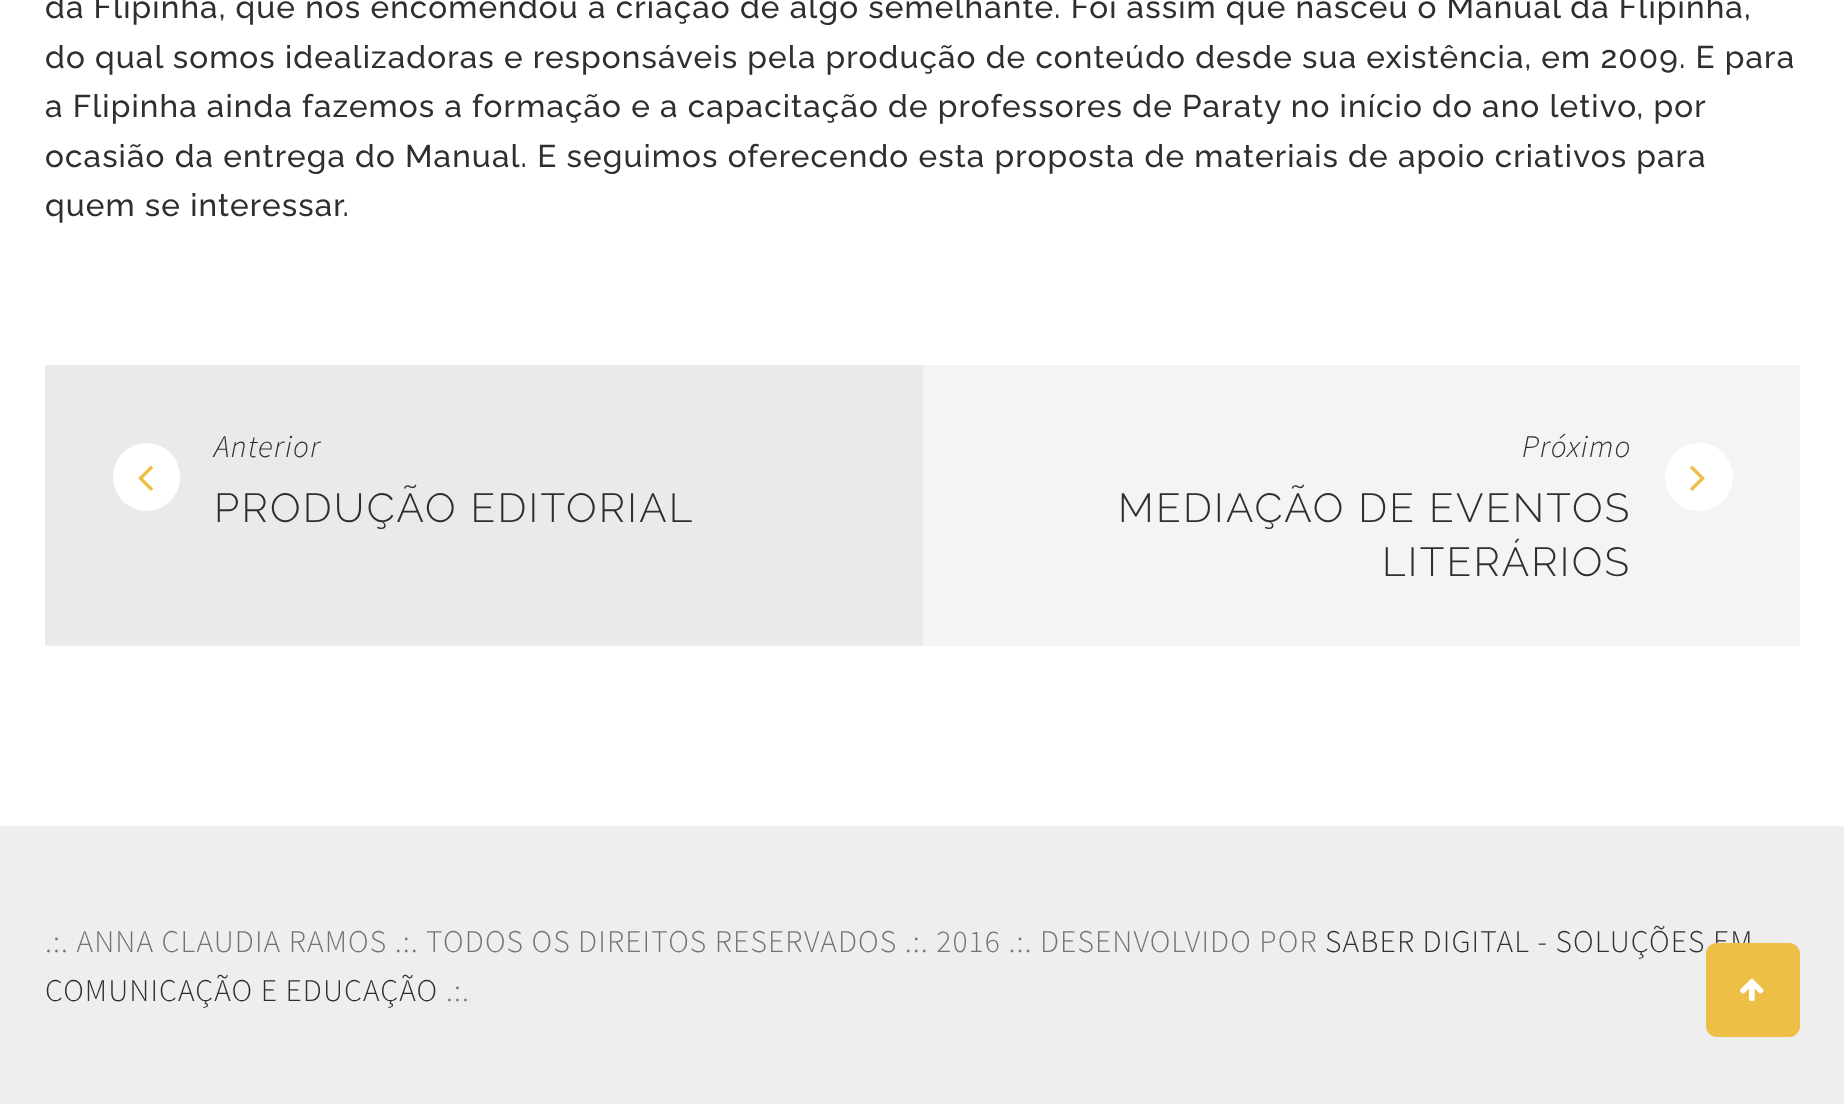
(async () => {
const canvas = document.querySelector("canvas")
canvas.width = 1844
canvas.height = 1104
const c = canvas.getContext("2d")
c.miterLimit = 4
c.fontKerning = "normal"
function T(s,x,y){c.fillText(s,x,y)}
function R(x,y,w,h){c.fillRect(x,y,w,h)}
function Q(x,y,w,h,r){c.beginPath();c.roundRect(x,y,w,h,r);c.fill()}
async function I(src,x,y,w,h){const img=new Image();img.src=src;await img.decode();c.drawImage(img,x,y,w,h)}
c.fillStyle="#fff"
R(0,0,1844,1104)
c.letterSpacing="1.12px"
c.font="500 31.5px Raleway"
c.fillStyle="#2f2f2f"
T("da Flipinha, que nos encomendou a criação de algo semelhante. Foi assim que nasceu o Manual da Flipinha,",45,18)
T("do qual somos idealizadoras e responsáveis pela produção de conteúdo desde sua existência, em 2009. E para",45,68)
T("a Flipinha ainda fazemos a formação e a capacitação de professores de Paraty no início do ano letivo, por",45,117)
T("ocasião da entrega do Manual. E seguimos oferecendo esta proposta de materiais de apoio criativos para",45,167)
T("quem se interessar.",45,216)
c.fillStyle="#eaeaea"
R(45,365,878,281)
c.fillStyle="#fff"
Q(113,443,67,68,33.5)
await I("1.png",138,465,15,26)
c.font="italic 300 31.5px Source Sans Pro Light"
c.fillStyle="#2f2f2f"
T("Anterior",214,457)
c.letterSpacing="2.25px"
c.font="300 40.5px Raleway"
T("PRODUÇÃO EDITORIAL",214,522)
c.fillStyle="#f3f4f4"
R(923,365,877,281)
c.letterSpacing="1.12px"
c.font="italic 300 31.5px Source Sans Pro Light"
c.fillStyle="#2f2f2f"
T("Próximo",1522,457)
c.fillStyle="#fff"
c.beginPath()
c.arc(1699,477,34,0,7)
c.fill()
await I("2.png",1690,465,15,26)
c.letterSpacing="2.25px"
c.font="300 40.5px Raleway"
c.fillStyle="#2f2f2f"
T("MEDIAÇÃO DE EVENTOS",1118,522)
T("LITERÁRIOS",1382,576)
c.fillStyle="#eee"
R(0,826,1844,278)
c.letterSpacing="1.12px"
c.font="300 31.5px Source Sans Pro Light"
c.fillStyle="#737373"
T(".:. ANNA CLAUDIA RAMOS .:. TODOS OS DIREITOS RESERVADOS .:. 2016 .:. DESENVOLVIDO POR",45,952)
c.fillStyle="#2f2f2f"
T("SABER DIGITAL - SOLUÇÕES EM",1325,952)
T("COMUNICAÇÃO E EDUCAÇÃO",45,1001)
c.fillStyle="#737373"
T(".:.",446,1001)
c.fillStyle="#edbf47"
Q(1706,943,94,94,11)
await I("3.png",1740,978,24,23)
})()
